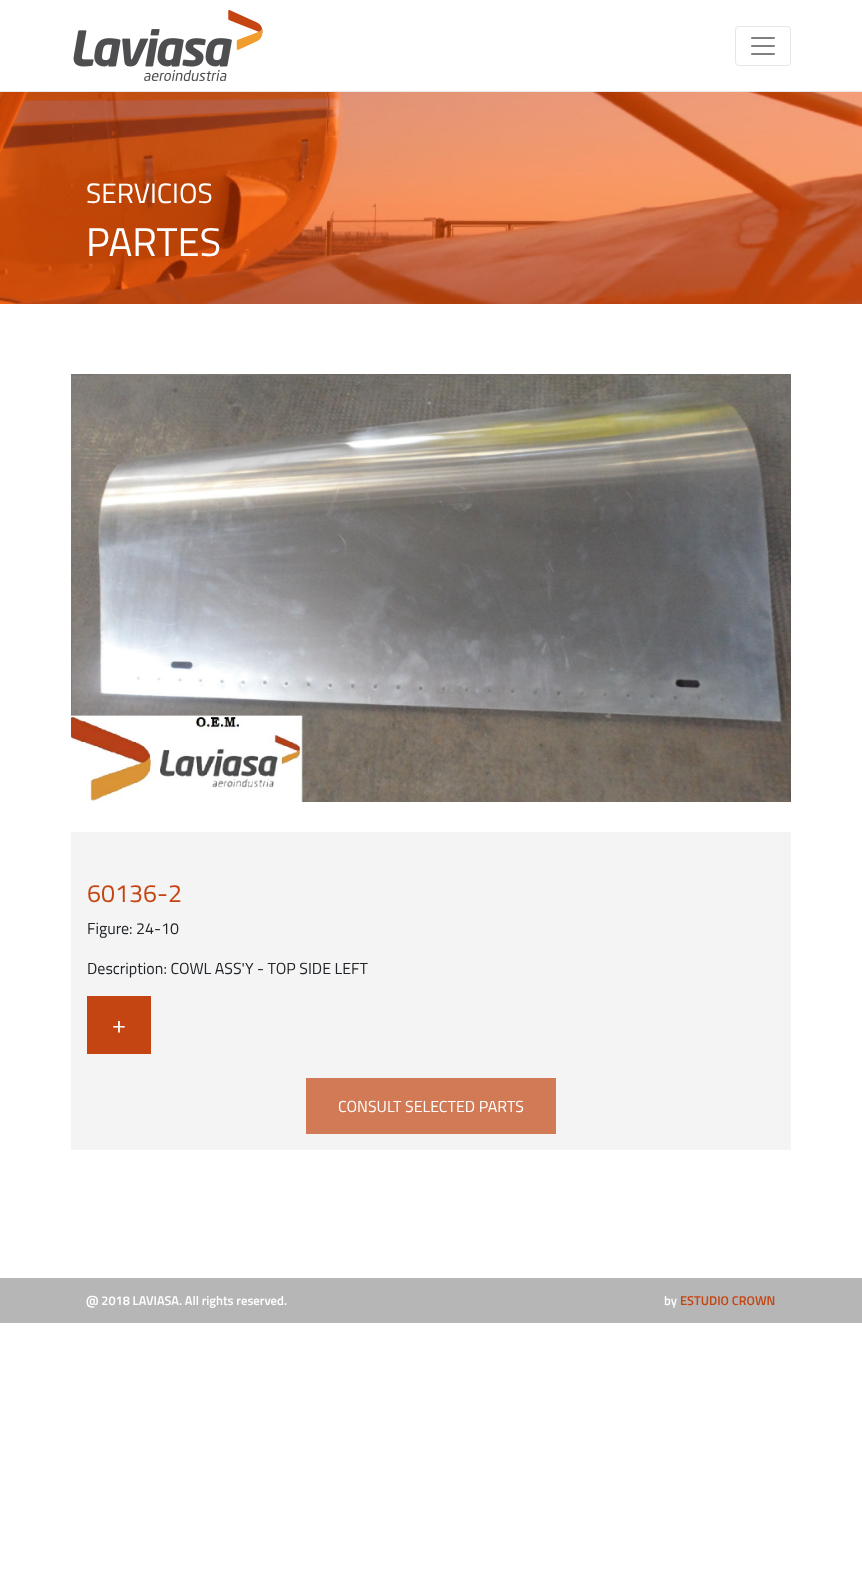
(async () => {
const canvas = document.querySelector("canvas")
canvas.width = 862
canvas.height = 1574
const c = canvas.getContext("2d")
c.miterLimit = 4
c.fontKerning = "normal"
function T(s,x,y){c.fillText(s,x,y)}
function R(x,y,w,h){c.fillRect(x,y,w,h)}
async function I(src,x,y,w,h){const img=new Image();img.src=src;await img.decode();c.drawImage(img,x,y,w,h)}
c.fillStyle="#fff"
R(0,0,862,1574)
c.fillStyle="#e9e9ea"
R(0,91,862,1)
await I("1.png",73,10,190,72)
c.beginPath()
c.roundRect(735.5,26.5,55,39,3.5)
c.strokeStyle="#e6e6e6"
c.stroke()
await I("2.png",751,37,24,18)
await I("3.png",0,92,862,212)
c.font="28px Titillium Web"
c.fillStyle="#fff"
T("SERVICIOS",86,203)
c.font="40px Titillium Web"
T("PARTES",86,256)
await I("4.png",71,374,720,428)
c.fillStyle="#f4f4f4"
R(71,832,720,318)
c.font="25px Titillium Web"
c.fillStyle="#c44511"
T("60136-2",87,902)
c.font="16px Titillium Web"
c.fillStyle="#212529"
T("Figure: 24-10",87,934)
T("Description: COWL ASS'Y - TOP SIDE LEFT",87,974)
c.fillStyle="#c44511"
R(87,996,64,58)
c.font="25px Titillium Web"
c.fillStyle="#fff"
T("+",112,1033)
c.fillStyle="#d27a55"
R(306,1078,250,56)
c.font="16px Titillium Web"
c.fillStyle="#fff"
T("CONSULT SELECTED PARTS",338,1112)
c.fillStyle="#b6b6b6"
R(0,1278,862,45)
c.font="600 12.75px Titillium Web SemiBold"
c.fillStyle="#fff"
T("@ 2018 LAVIASA. All rights reserved.",86,1305)
T("by",664,1305)
c.fillStyle="#c44511"
T("ESTUDIO CROWN",680,1305)
})()
